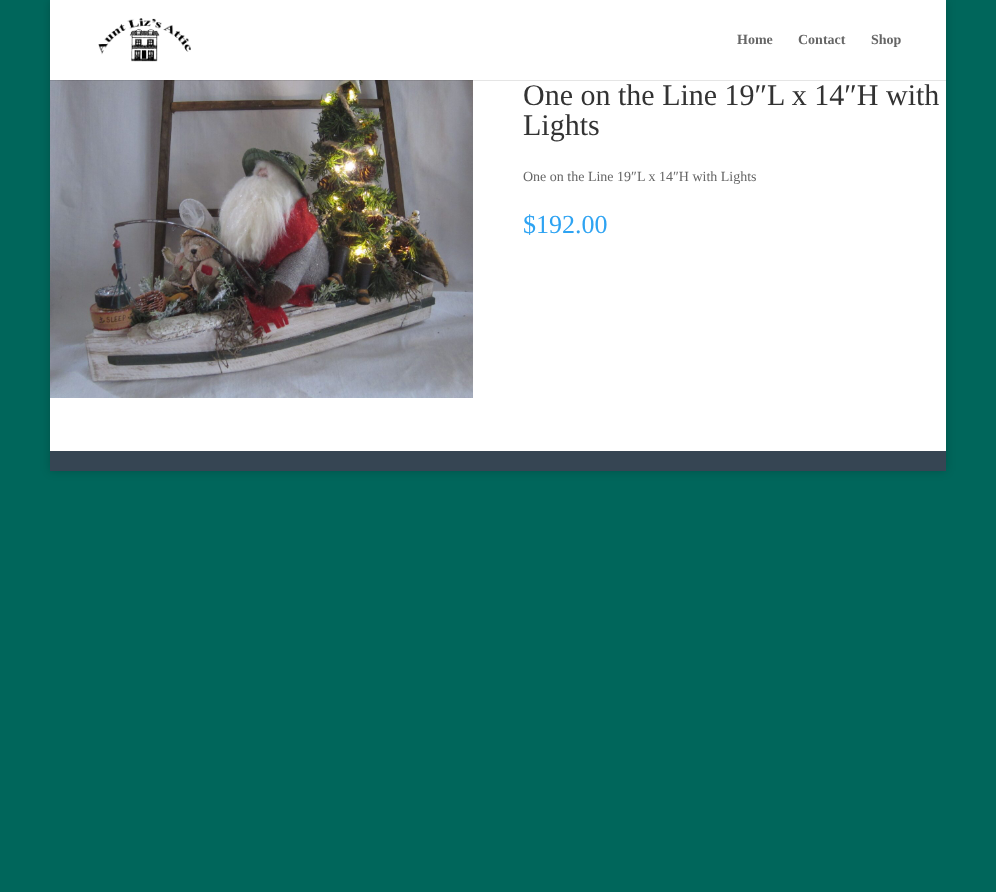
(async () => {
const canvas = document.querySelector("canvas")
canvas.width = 996
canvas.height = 892
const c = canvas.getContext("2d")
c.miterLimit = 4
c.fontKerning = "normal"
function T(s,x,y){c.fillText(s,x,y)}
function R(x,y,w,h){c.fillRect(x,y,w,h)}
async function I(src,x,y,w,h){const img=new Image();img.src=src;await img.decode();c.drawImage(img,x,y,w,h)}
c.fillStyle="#00665b"
R(0,0,996,892)
c.fillStyle="#00000033"
c.filter="blur(5px)"
c.beginPath()
c.rect(50,0,896,471)
c.fill()
c.filter="none"
c.fillStyle="#fff"
R(50,0,896,451)
await I("2.png",50,80,423,318)
c.fillStyle="#0000001a"
R(50,80,896,1)
await I("1.png",98,18,93,44)
c.font="bold 14px Liberation Serif"
c.fillStyle="#666"
T("Home",737,44)
T("Contact",798,44)
T("Shop",871,44)
c.font="30px Liberation Serif"
c.fillStyle="#333"
T("One on the Line 19″L x 14″H with",523,105)
T("Lights",523,135)
c.font="14px Liberation Serif"
c.fillStyle="#666"
T("One on the Line 19″L x 14″H with Lights",523,181)
c.font="26px Liberation Serif"
c.fillStyle="#2ea3f2"
T("$192.00",523,233)
c.fillStyle="#364553"
R(50,451,896,20)
})()
